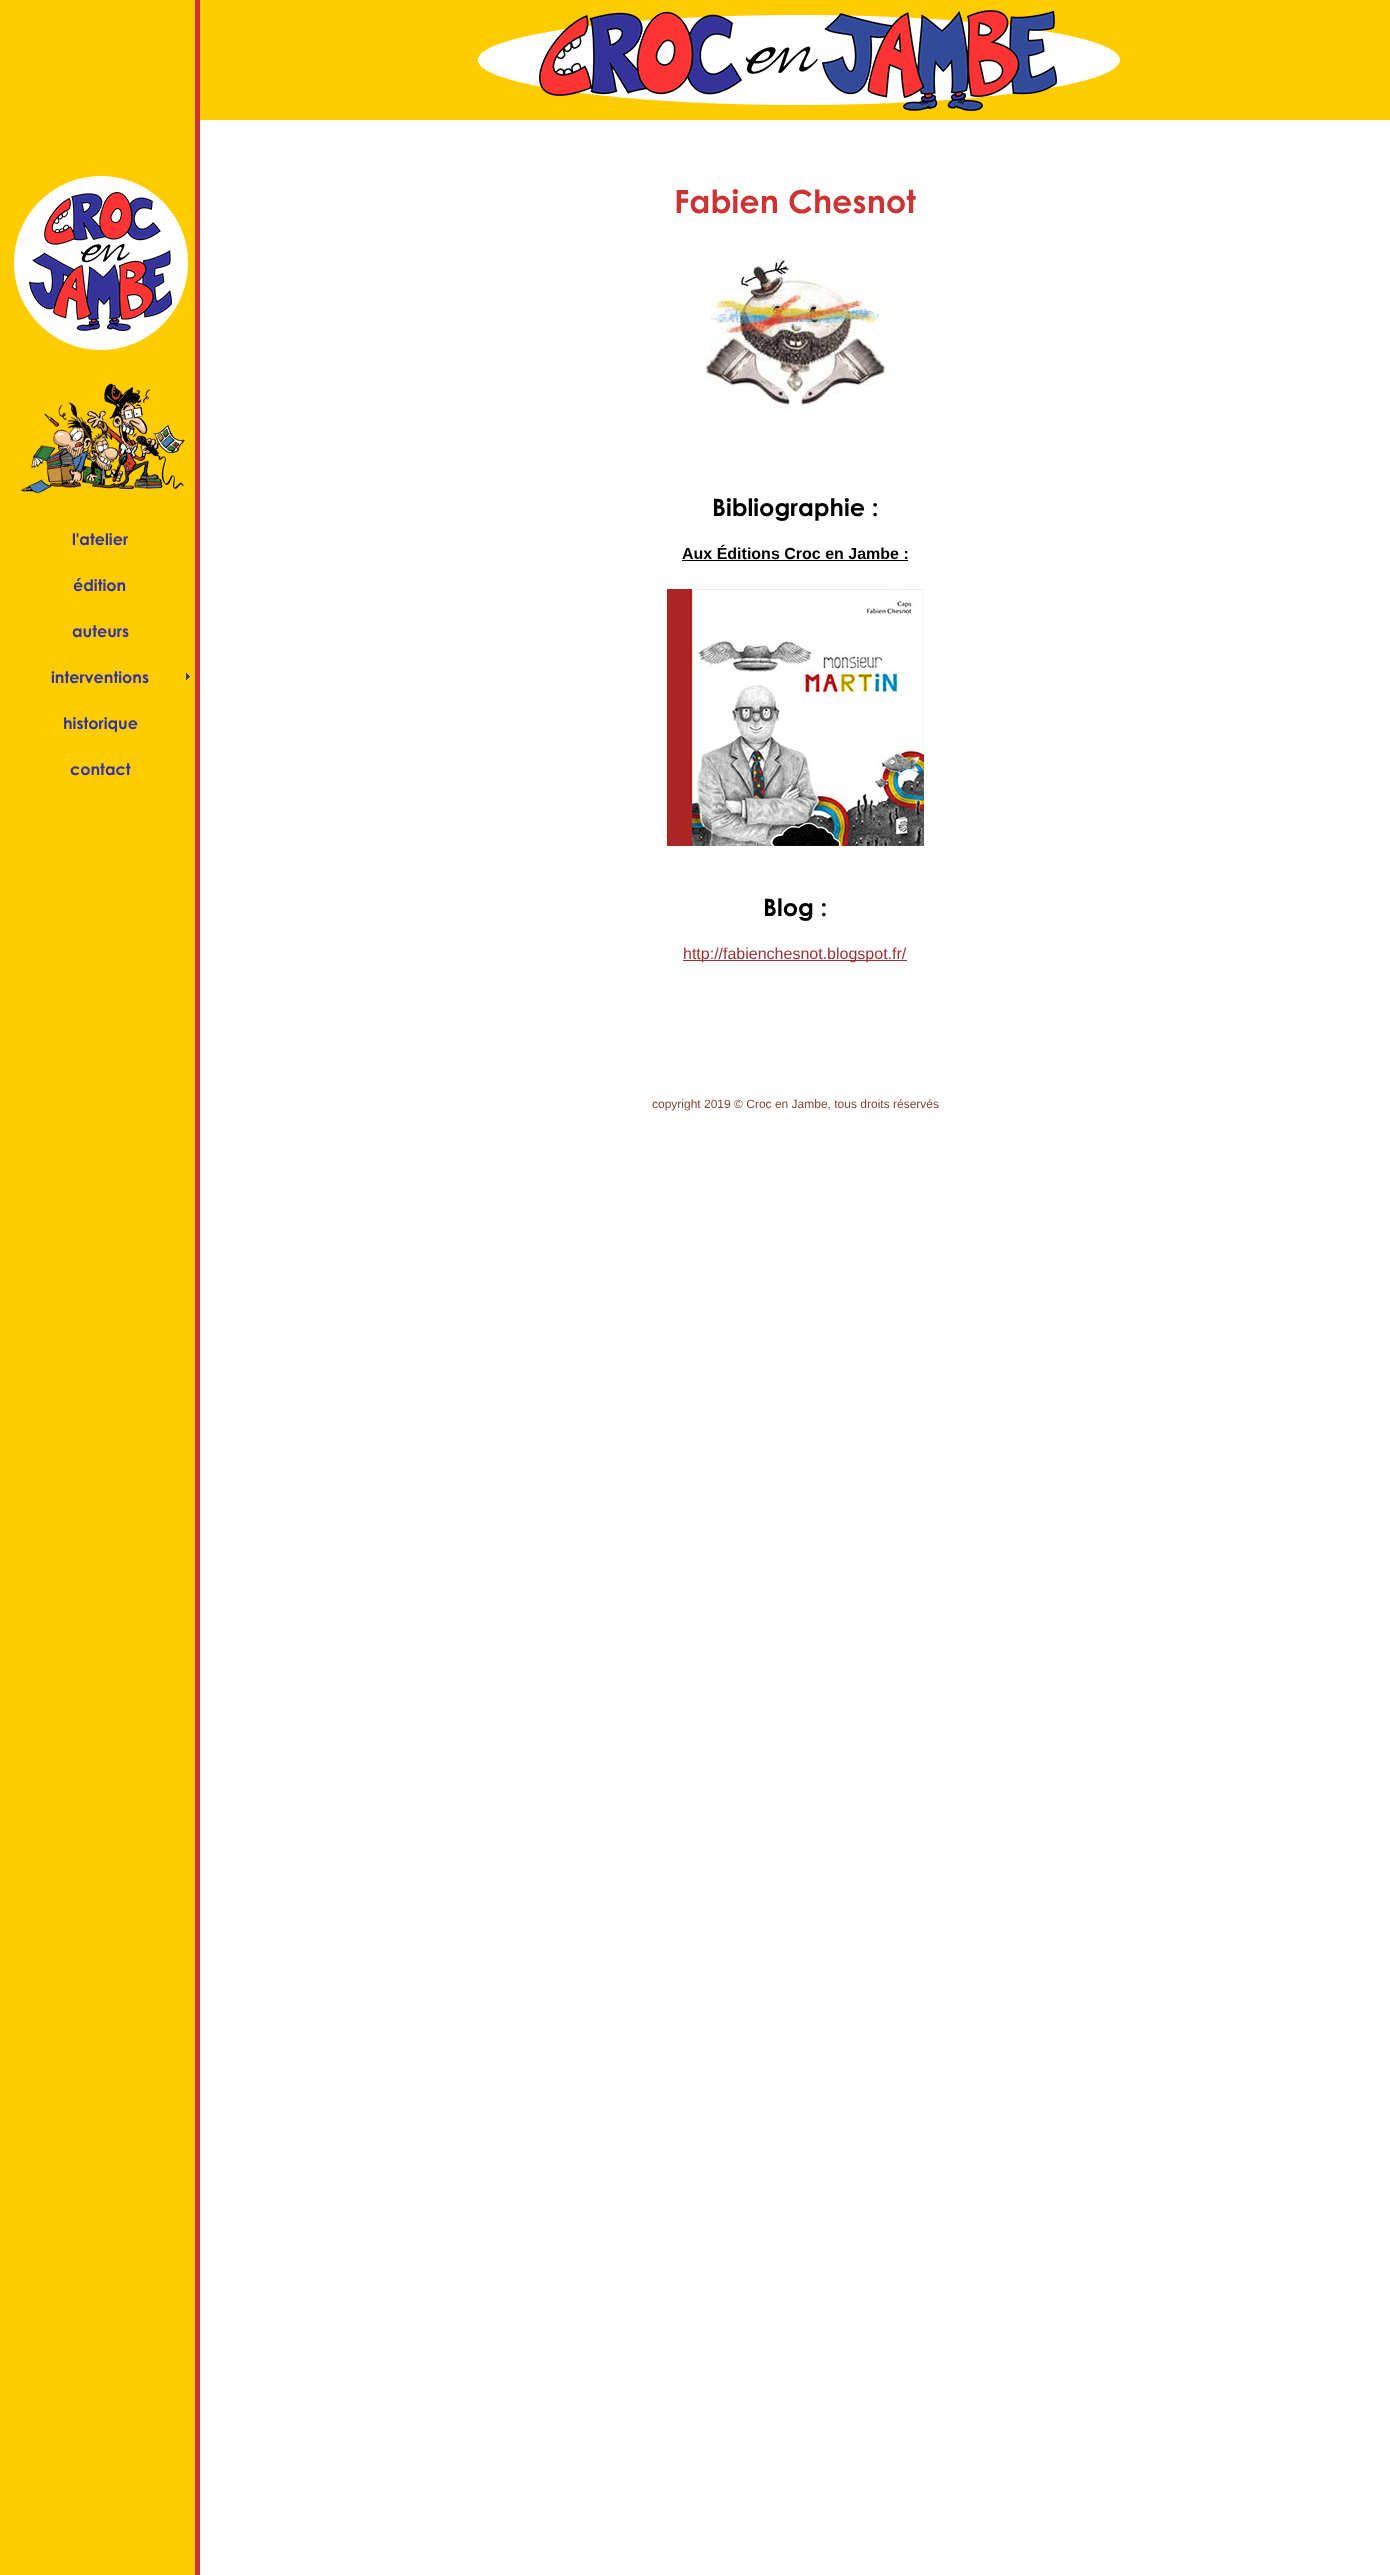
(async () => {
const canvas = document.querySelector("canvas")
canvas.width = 1390
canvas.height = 2575
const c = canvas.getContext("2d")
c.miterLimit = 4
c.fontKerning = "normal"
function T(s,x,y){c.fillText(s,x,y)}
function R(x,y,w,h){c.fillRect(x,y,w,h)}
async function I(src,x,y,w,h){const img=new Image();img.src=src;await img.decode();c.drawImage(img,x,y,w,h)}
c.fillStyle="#fff"
R(0,0,1390,2575)
await I("1.png",0,0,200,2575)
c.fillStyle="#fc0"
R(200,0,1190,120)
await I("2.png",478,10,642,101)
await I("3.png",14,176,174,318)
c.font="bold 16px Century Gothic"
c.fillStyle="#339"
T("l'atelier",72,545)
T("édition",73,591)
T("auteurs",72,637)
await I("4.png",186,673,4,7)
T("interventions",51,683)
T("historique",63,729)
T("contact",70,775)
c.font="bold 32px Century Gothic"
c.fillStyle="#c33"
T("Fabien Chesnot",674,213)
await I("5.png",703,258,184,152)
c.font="bold 24px Century Gothic"
c.fillStyle="#000"
T("Bibliographie :",712,516)
c.font="bold 16px Liberation Sans"
T("Aux Éditions Croc en Jambe :",682,559)
R(682,560,226,1)
await I("6.png",667,589,257,257)
c.font="bold 24px Century Gothic"
T("Blog :",763,916)
c.fillStyle="#933"
R(683,960,224,1)
c.font="16px Liberation Sans"
T("http://fabienchesnot.blogspot.fr/",683,959)
c.font="12px Liberation Sans"
c.fillStyle="#814432"
T("copyright 2019 © Croc en Jambe, tous droits réservés",652,1108)
})()
